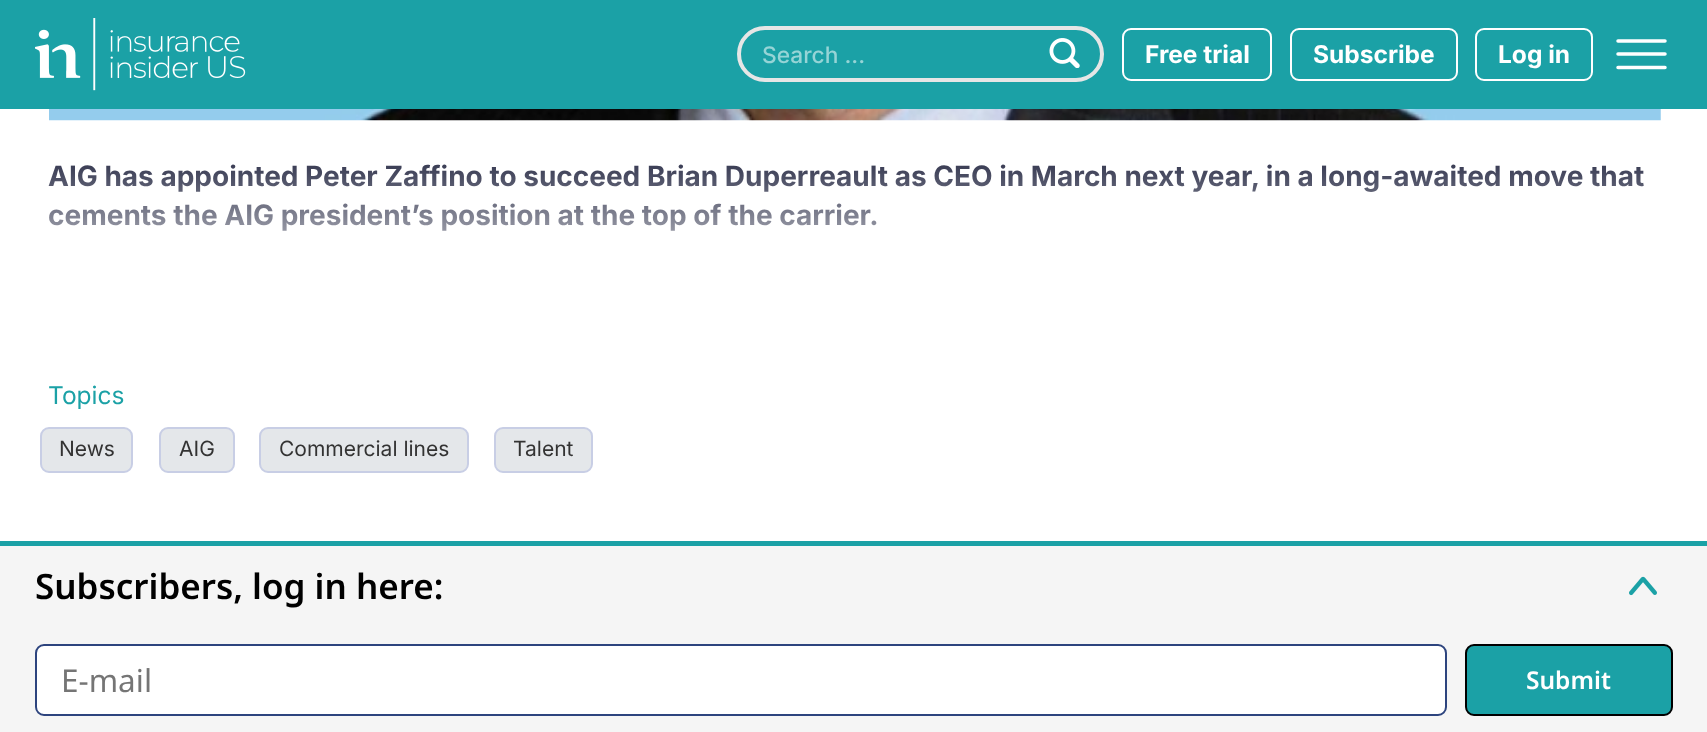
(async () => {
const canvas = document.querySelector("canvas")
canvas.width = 1707
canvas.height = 732
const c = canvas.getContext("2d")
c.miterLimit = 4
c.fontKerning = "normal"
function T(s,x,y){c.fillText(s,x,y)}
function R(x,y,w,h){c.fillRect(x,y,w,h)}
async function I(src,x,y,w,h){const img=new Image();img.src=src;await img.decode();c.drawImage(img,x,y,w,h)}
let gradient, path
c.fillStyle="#fff"
R(0,0,1707,732)
c.fillStyle="#1ba1a6"
R(0,0,1707,109)
await I("1.png",35,18,211,73)
c.beginPath()
c.roundRect(739,28,363,52,26)
c.strokeStyle="#e6e6e6"
c.lineWidth=4
c.stroke()
c.font="500 22.75px Inter"
c.fillStyle="#96d4d6"
T("Search ...",762,63)
await I("2.png",1049,38,31,30)
c.beginPath()
c.roundRect(1123,29,148,51,8)
c.strokeStyle="#fff"
c.lineWidth=2
c.stroke()
c.font="bold 24.5px Inter"
c.fillStyle="#fff"
T("Free trial",1145,63)
c.beginPath()
c.roundRect(1291,29,166,51,8)
c.stroke()
T("Subscribe",1313,63)
c.beginPath()
c.roundRect(1476,29,116,51,8)
c.stroke()
T("Log in",1498,63)
path = new Path2D("M1665 41h-47m47 13h-47m47 13.5h-47")
c.lineWidth=3.5
c.lineCap="round"
c.lineJoin="round"
c.stroke(path)
await I("3.png",49,109,1612,12)
c.font="bold 28px Inter"
c.fillStyle="#2f324b"
T("AIG has appointed Peter Zaffino to succeed Brian Duperreault as CEO in March next year, in a long-awaited move that",48,186)
T("cements the AIG president’s position at the top of the carrier.",48,225)
gradient = c.createLinearGradient(855,310,855,156)
gradient.addColorStop(0,"#fff")
gradient.addColorStop(1,"#ffffff00")
c.fillStyle = gradient
R(49,164,1595,67)
c.fillStyle="#f5f5f5"
R(0,546,1707,186)
c.fillStyle="#1ba1a6"
R(0,541,1707,5)
c.font="600 35px Noto Sans"
c.fillStyle="#000"
T("Subscribers, log in here:",35,599)
c.fillStyle="#fff"
c.beginPath()
c.roundRect(36,645,1410,70,8)
c.fill()
c.strokeStyle="#2d447e"
c.lineWidth=2
c.lineJoin="miter"
c.stroke()
c.font="31.5px Noto Sans"
c.fillStyle="#757575"
T("E-mail",61,692)
c.fillStyle="#1ba1a6"
c.beginPath()
c.roundRect(1466,645,206,70,8)
c.fill()
c.strokeStyle="#000"
c.stroke()
c.font="600 24.5px Noto Sans"
c.fillStyle="#fff"
T("Submit",1526,689)
await I("4.png",1629,576,28,20)
c.font="24.5px Inter"
c.fillStyle="#1ba1a6"
T("Topics",48,404)
c.fillStyle="#e4e7ea"
c.beginPath()
c.roundRect(41,428,91,44,8)
c.fill()
c.strokeStyle="#c8cee5"
c.stroke()
c.font="21px Inter"
c.fillStyle="#333"
T("News",59,456)
c.fillStyle="#e4e7ea"
c.beginPath()
c.roundRect(160,428,74,44,8)
c.fill()
c.stroke()
c.fillStyle="#333"
T("AIG",179,456)
c.fillStyle="#e4e7ea"
c.beginPath()
c.roundRect(260,428,208,44,8)
c.fill()
c.stroke()
c.fillStyle="#333"
T("Commercial lines",279,456)
c.fillStyle="#e4e7ea"
c.beginPath()
c.roundRect(495,428,97,44,8)
c.fill()
c.stroke()
c.fillStyle="#333"
T("Talent",513,456)
})()
